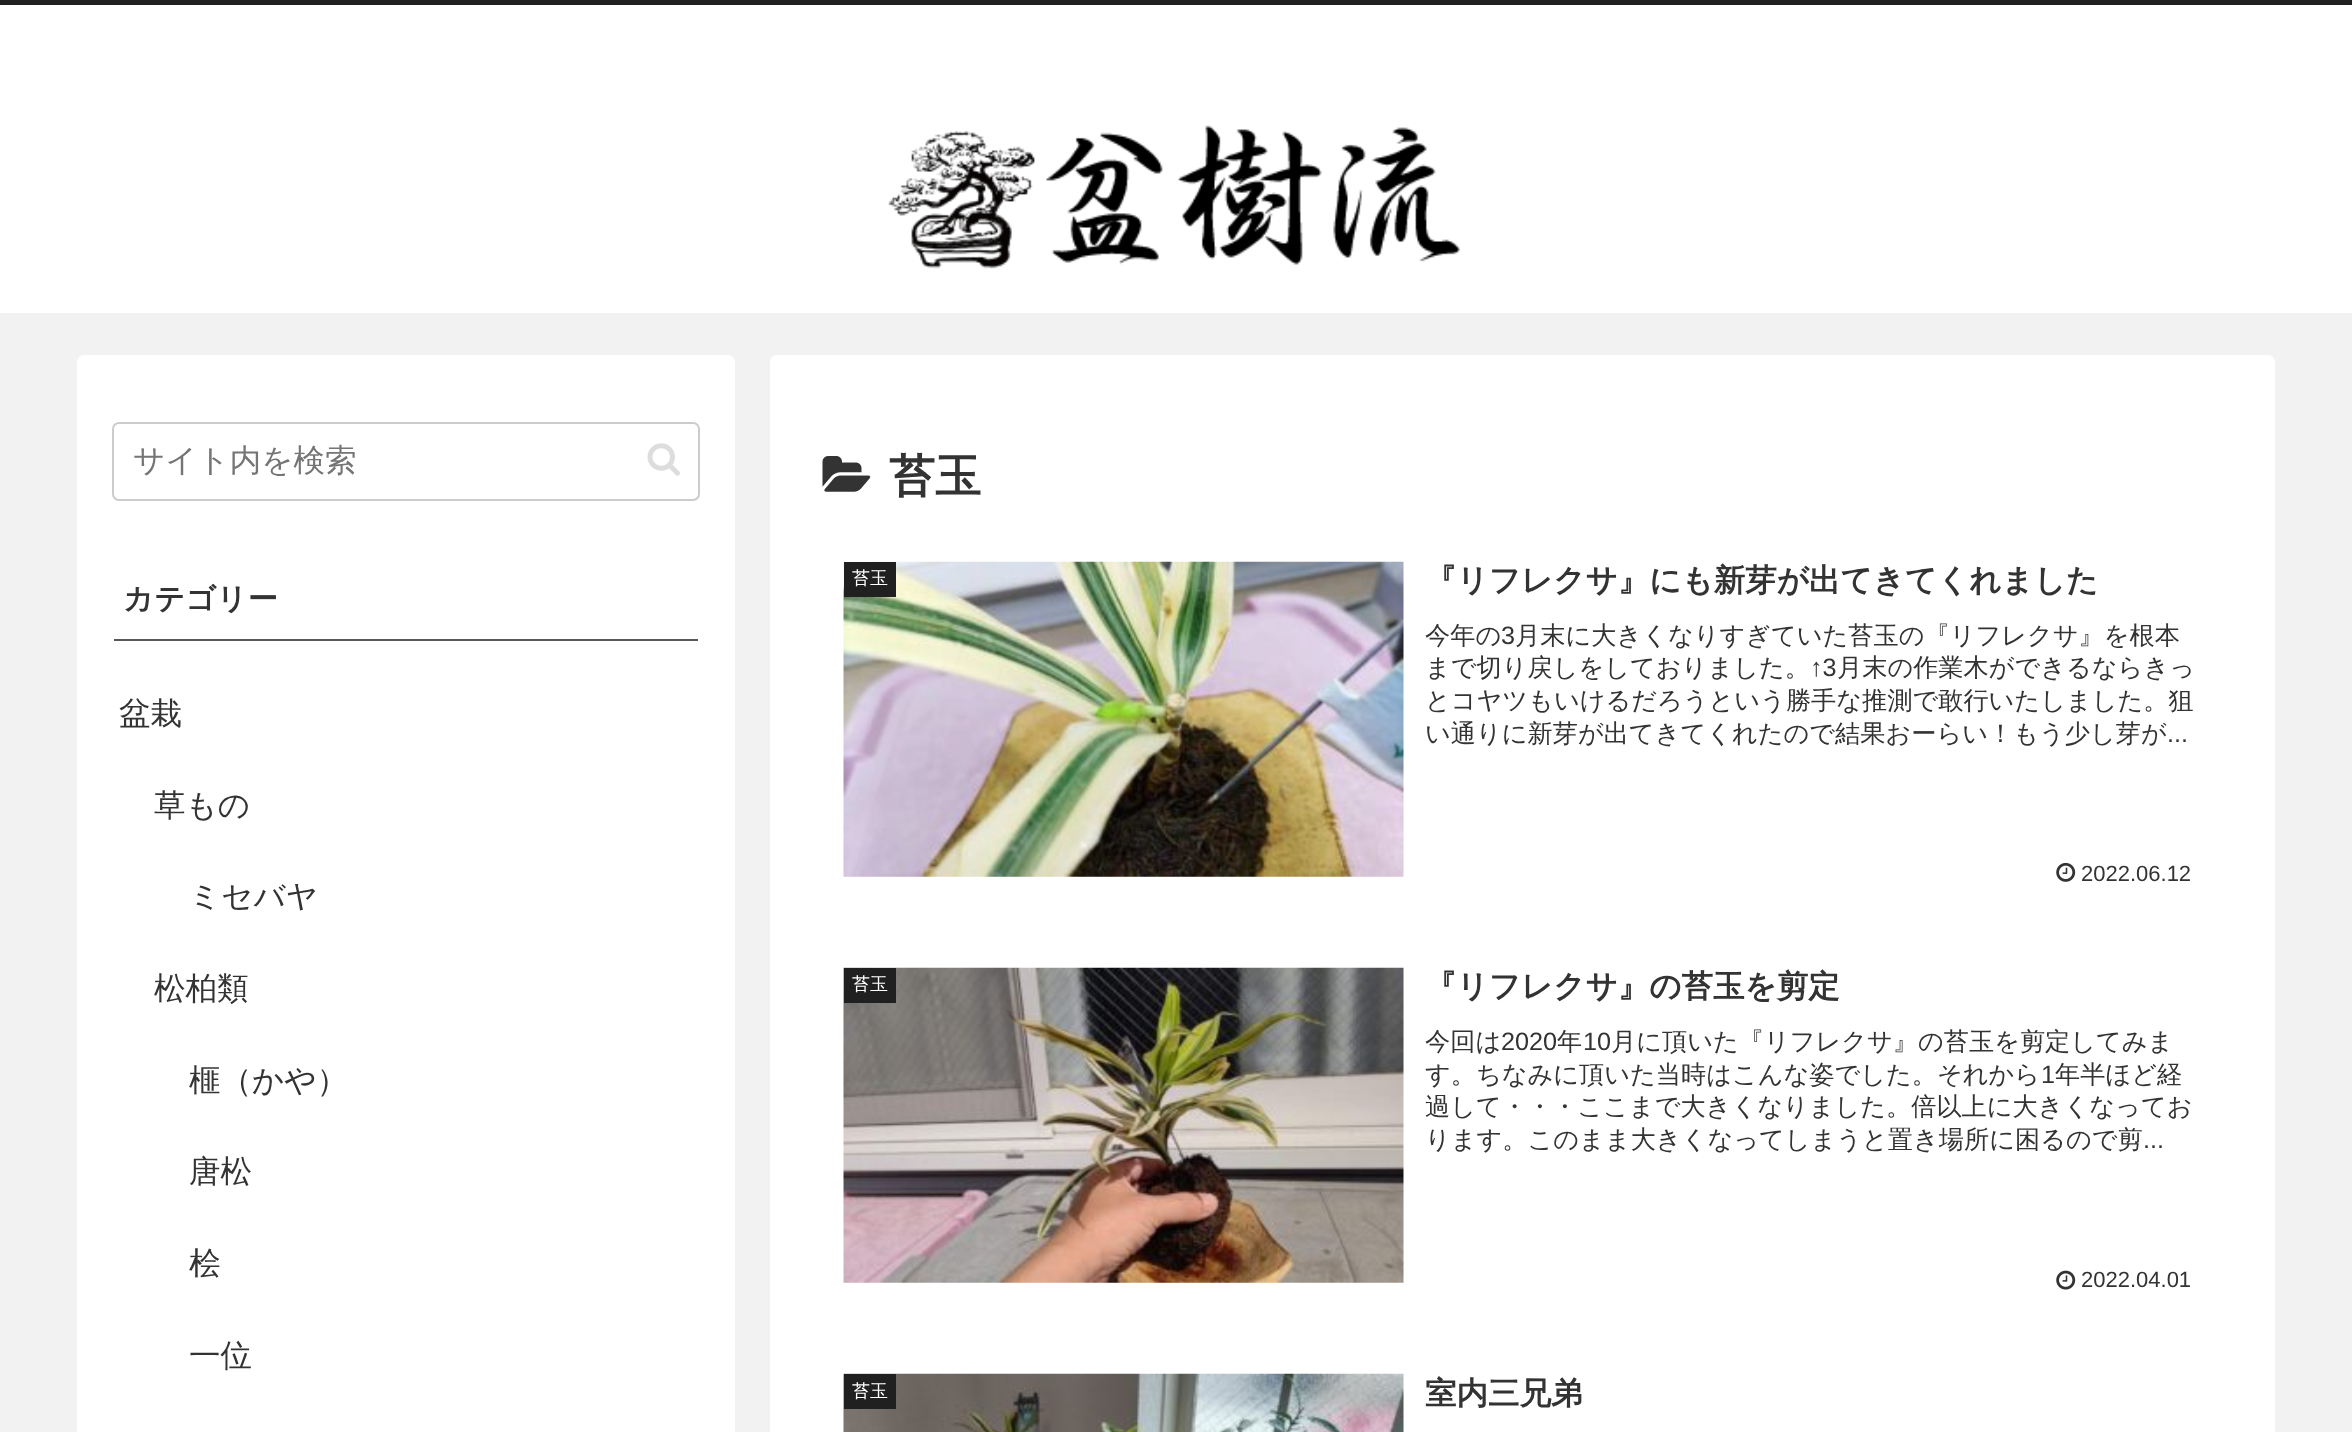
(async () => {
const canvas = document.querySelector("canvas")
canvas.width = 2352
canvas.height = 1432
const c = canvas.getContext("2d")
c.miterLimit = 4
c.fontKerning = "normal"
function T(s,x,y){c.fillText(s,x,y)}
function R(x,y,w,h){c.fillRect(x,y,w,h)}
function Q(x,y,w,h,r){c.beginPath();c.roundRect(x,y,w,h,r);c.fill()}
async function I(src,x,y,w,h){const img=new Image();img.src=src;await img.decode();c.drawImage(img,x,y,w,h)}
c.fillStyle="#f2f2f2"
R(0,0,2352,1432)
c.fillStyle="#fff"
R(0,5,2352,308)
c.fillStyle="#202020"
R(0,0,2352,5)
await I("1.png",888,125,572,144)
c.fillStyle="#fff"
Q(77,355,658,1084,7)
c.beginPath()
c.roundRect(113,423,586,77,6)
c.strokeStyle="#ccc"
c.lineWidth=2
c.stroke()
c.font="500 31.5px WenQuanYi Zen Hei"
c.fillStyle="#757575"
T("サイト内を検索",133,471)
await I("2.png",647,443,33,33)
c.fillStyle="#595857"
R(114,639,584,2)
c.letterSpacing="0.5px"
c.font="bold 30px WenQuanYi Zen Hei"
c.fillStyle="#333"
T("カテゴリー",123,609)
c.letterSpacing="0px"
c.font="500 31.5px WenQuanYi Zen Hei"
T("盆栽",119,724)
T("草もの",154,816)
T("ミセバヤ",189,907)
T("松柏類",154,999)
T("榧（かや）",189,1091)
T("唐松",189,1182)
T("桧",189,1274)
T("一位",189,1366)
c.fillStyle="#fff"
Q(770,355,1505,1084,7)
await I("3.png",822,456,49,36)
c.font="bold 46px WenQuanYi Zen Hei"
c.fillStyle="#333"
T("苔玉",889,492)
await I("4.png",843,561,561,316)
c.fillStyle="#202020"
R(844,562,52,35)
c.font="500 18px WenQuanYi Zen Hei"
c.fillStyle="#fff"
T("苔玉",852,584)
c.font="bold 31.5px WenQuanYi Zen Hei"
c.fillStyle="#333"
T("『リフレクサ』にも新芽が出てきてくれました",1425,591)
c.font="500 25.2px WenQuanYi Zen Hei"
T("今年の",1425,644)
c.font="25.2px Liberation Sans"
T("3",1501,644)
c.font="500 25.2px WenQuanYi Zen Hei"
T("月末に大きくなりすぎていた苔玉の『リフレクサ』を根本",1515,644)
T("まで切り戻しをしておりました。",1425,676)
c.font="25.2px Liberation Sans"
T("↑3",1810,676)
c.font="500 25.2px WenQuanYi Zen Hei"
T("月末の作業木ができるならきっ",1837,676)
T("とコヤツもいけるだろうという勝手な推測で敢行いたしました。狙",1425,709)
T("い通りに新芽が出てきてくれたので結果おーらい！もう少し芽が",1425,742)
c.font="25.2px Liberation Sans"
T("...",2167,742)
await I("5.png",2056,862,20,20)
c.font="22px Liberation Sans"
T("2022.06.12",2081,881)
await I("6.png",843,967,561,316)
c.fillStyle="#202020"
R(844,968,52,35)
c.font="500 18px WenQuanYi Zen Hei"
c.fillStyle="#fff"
T("苔玉",852,990)
c.font="bold 31.5px WenQuanYi Zen Hei"
c.fillStyle="#333"
T("『リフレクサ』の苔玉を剪定",1425,997)
c.font="500 25.2px WenQuanYi Zen Hei"
T("今回は",1425,1050)
c.font="25.2px Liberation Sans"
T("2020",1501,1050)
c.font="500 25.2px WenQuanYi Zen Hei"
T("年",1557,1050)
c.font="25.2px Liberation Sans"
T("10",1583,1050)
c.font="500 25.2px WenQuanYi Zen Hei"
T("月に頂いた『リフレクサ』の苔玉を剪定してみま",1611,1050)
T("す。ちなみに頂いた当時はこんな姿でした。それから",1425,1083)
c.font="25.2px Liberation Sans"
T("1",2041,1083)
c.font="500 25.2px WenQuanYi Zen Hei"
T("年半ほど経",2055,1083)
T("過して・・・ここまで大きくなりました。倍以上に大きくなってお",1425,1115)
T("ります。このまま大きくなってしまうと置き場所に困るので剪",1425,1148)
c.font="25.2px Liberation Sans"
T("...",2143,1148)
await I("7.png",2056,1270,20,20)
c.font="22px Liberation Sans"
T("2022.04.01",2081,1287)
await I("8.png",843,1373,561,59)
c.fillStyle="#202020"
R(844,1374,52,35)
c.font="500 18px WenQuanYi Zen Hei"
c.fillStyle="#fff"
T("苔玉",852,1397)
c.font="bold 31.5px WenQuanYi Zen Hei"
c.fillStyle="#333"
T("室内三兄弟",1425,1404)
})()
